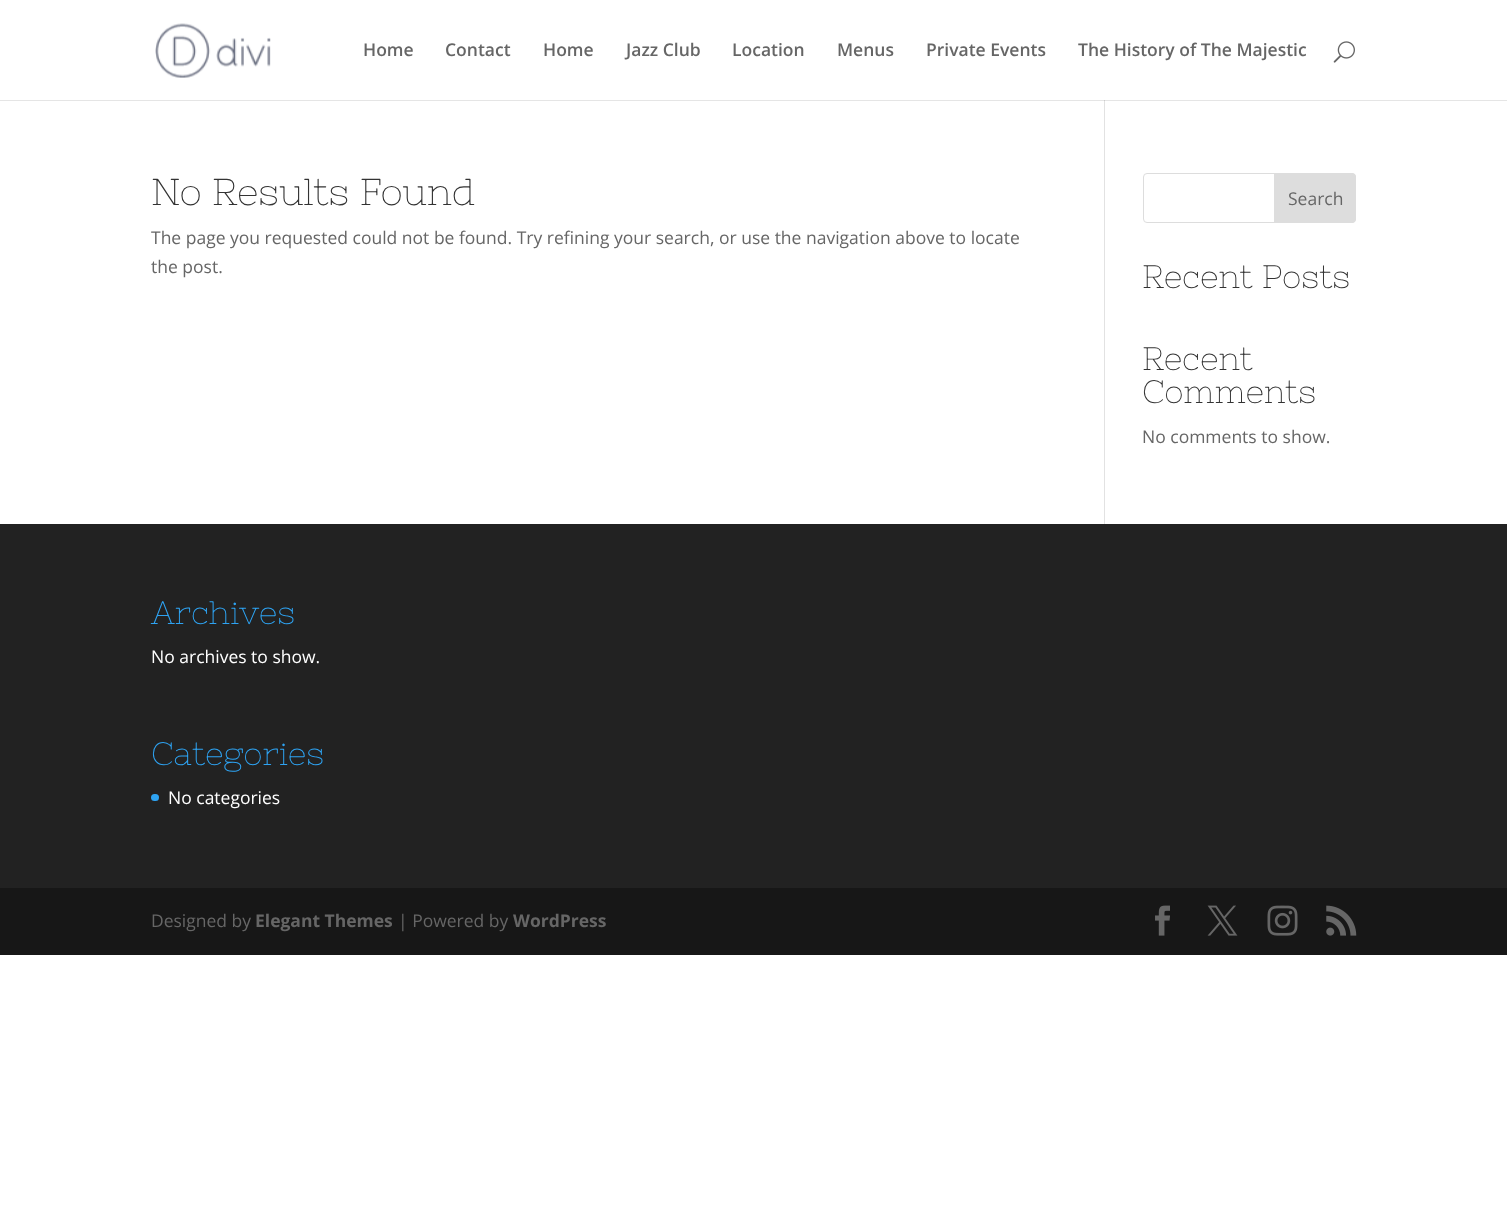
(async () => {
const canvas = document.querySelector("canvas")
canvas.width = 1507
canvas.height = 1222
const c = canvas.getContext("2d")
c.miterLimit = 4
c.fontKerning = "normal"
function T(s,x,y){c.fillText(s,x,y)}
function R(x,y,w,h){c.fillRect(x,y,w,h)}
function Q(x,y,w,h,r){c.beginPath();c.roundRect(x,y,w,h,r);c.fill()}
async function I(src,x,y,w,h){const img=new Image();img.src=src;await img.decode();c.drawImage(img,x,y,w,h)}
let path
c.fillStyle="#fff"
R(0,0,1507,1222)
c.fillStyle="#e2e2e2"
R(1104,100,1,424)
c.fillStyle="#0000001a"
path = new Path2D("M0 100v1h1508v-100v99z")
c.fill(path)
await I("1.png",155,23,116,55)
c.font="600 17.5px Open Sans"
c.fillStyle="#666"
T("Home",363,56)
T("Contact",445,56)
T("Home",543,56)
T("Jazz Club",626,56)
T("Location",732,56)
T("Menus",837,56)
T("Private Events",926,56)
T("The History of The Majestic",1078,56)
await I("2.png",1333,41,22,22)
c.font="37.5px Nixie One"
c.fillStyle="#333"
T("No Results Found",151,205)
c.font="17.5px Open Sans"
c.fillStyle="#666"
T("The page you requested could not be found. Try refining your search, or use the navigation above to locate",151,244)
T("the post.",151,273)
c.beginPath()
c.roundRect(1143.5,173.5,212,49,3.5)
c.strokeStyle="#ddd"
c.stroke()
c.fillStyle="#ddd"
c.beginPath()
c.roundRect(1274.5,173.5,81,49,[0,3.5,3.5,0])
c.fill()
c.stroke()
c.fillStyle="#666"
T("Search",1288,205)
c.font="32.5px Nixie One"
c.fillStyle="#333"
T("Recent Posts",1142,288)
T("Recent",1142,370)
T("Comments",1142,403)
c.font="17.5px Open Sans"
c.fillStyle="#666"
T("No comments to show.",1142,443)
c.fillStyle="#222"
R(0,524,1507,364)
c.font="32.5px Nixie One"
c.fillStyle="#2ea3f2"
T("Archives",151,624)
c.font="17.5px Open Sans"
c.fillStyle="#fff"
T("No archives to show.",151,663)
c.font="32.5px Nixie One"
c.fillStyle="#2ea3f2"
T("Categories",151,765)
Q(151,794,8,7,3.5)
c.font="17.5px Open Sans"
c.fillStyle="#fff"
T("No categories",168,804)
c.fillStyle="#171717"
R(0,888,1507,67)
c.fillStyle="#666"
T("Designed by",151,927)
c.font="bold 17.5px Open Sans"
T("Elegant Themes",255,927)
c.font="17.5px Open Sans"
T("| Powered by",398,927)
c.font="bold 17.5px Open Sans"
T("WordPress",513,927)
await I("3.png",1155,905,15,31)
await I("4.png",1207,905,31,31)
await I("5.png",1267,905,31,31)
await I("6.png",1326,905,31,31)
})()
